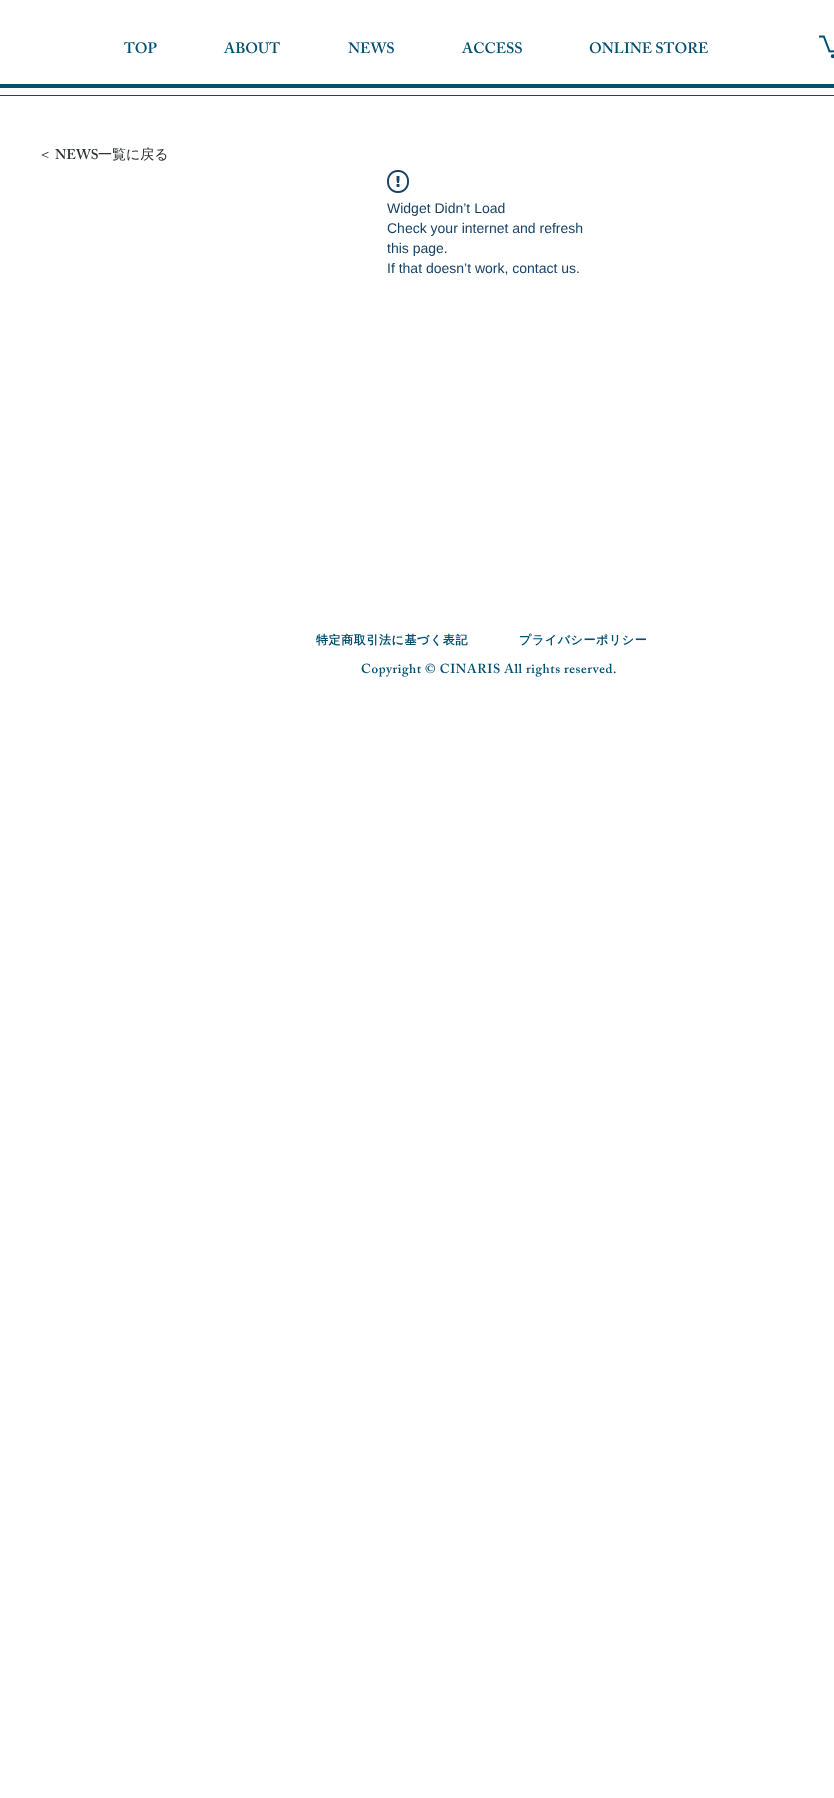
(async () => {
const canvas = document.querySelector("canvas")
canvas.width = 834
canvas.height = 1798
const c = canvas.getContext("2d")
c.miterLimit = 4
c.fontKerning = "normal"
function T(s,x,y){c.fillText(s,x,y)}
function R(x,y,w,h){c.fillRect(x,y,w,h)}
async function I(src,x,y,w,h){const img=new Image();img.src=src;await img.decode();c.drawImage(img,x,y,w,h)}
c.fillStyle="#fff"
R(0,0,834,1798)
c.font="600 15px 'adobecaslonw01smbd'"
c.fillStyle="#004f71"
T("TOP",124,53)
T("ABOUT",224,53)
T("NEWS",348,53)
T("ACCESS",462,53)
T("ONLINE STORE",589,53)
await I("1.png",819,35,15,24)
R(0,84,834,4)
R(0,95,834,1)
c.font="500 14px WenQuanYi Zen Hei"
c.fillStyle="#2e3233"
T("＜",38,159)
c.font="600 14px 'adobecaslonw01smbd'"
T("NEWS",55,159)
c.font="500 14px WenQuanYi Zen Hei"
T("一覧に戻る",98,159)
await I("2.png",387,170,22,23)
c.font="14px Liberation Sans"
c.fillStyle="#174165"
T("Widget Didn’t Load",387,213)
T("Check your internet and refresh",387,233)
T("this page.",387,253)
T("If that doesn’t work, contact us.",387,273)
c.letterSpacing="0.6px"
c.font="bold 12px WenQuanYi Zen Hei"
c.fillStyle="#004f71"
T("特定商取引法に基づく表記",316,644)
T("プライバシーポリシー",519,644)
c.letterSpacing="0.65px"
c.font="600 13px 'adobecaslonw01smbd'"
T("Copyright ©︎ CINARIS All rights reserved.",361,673)
})()
